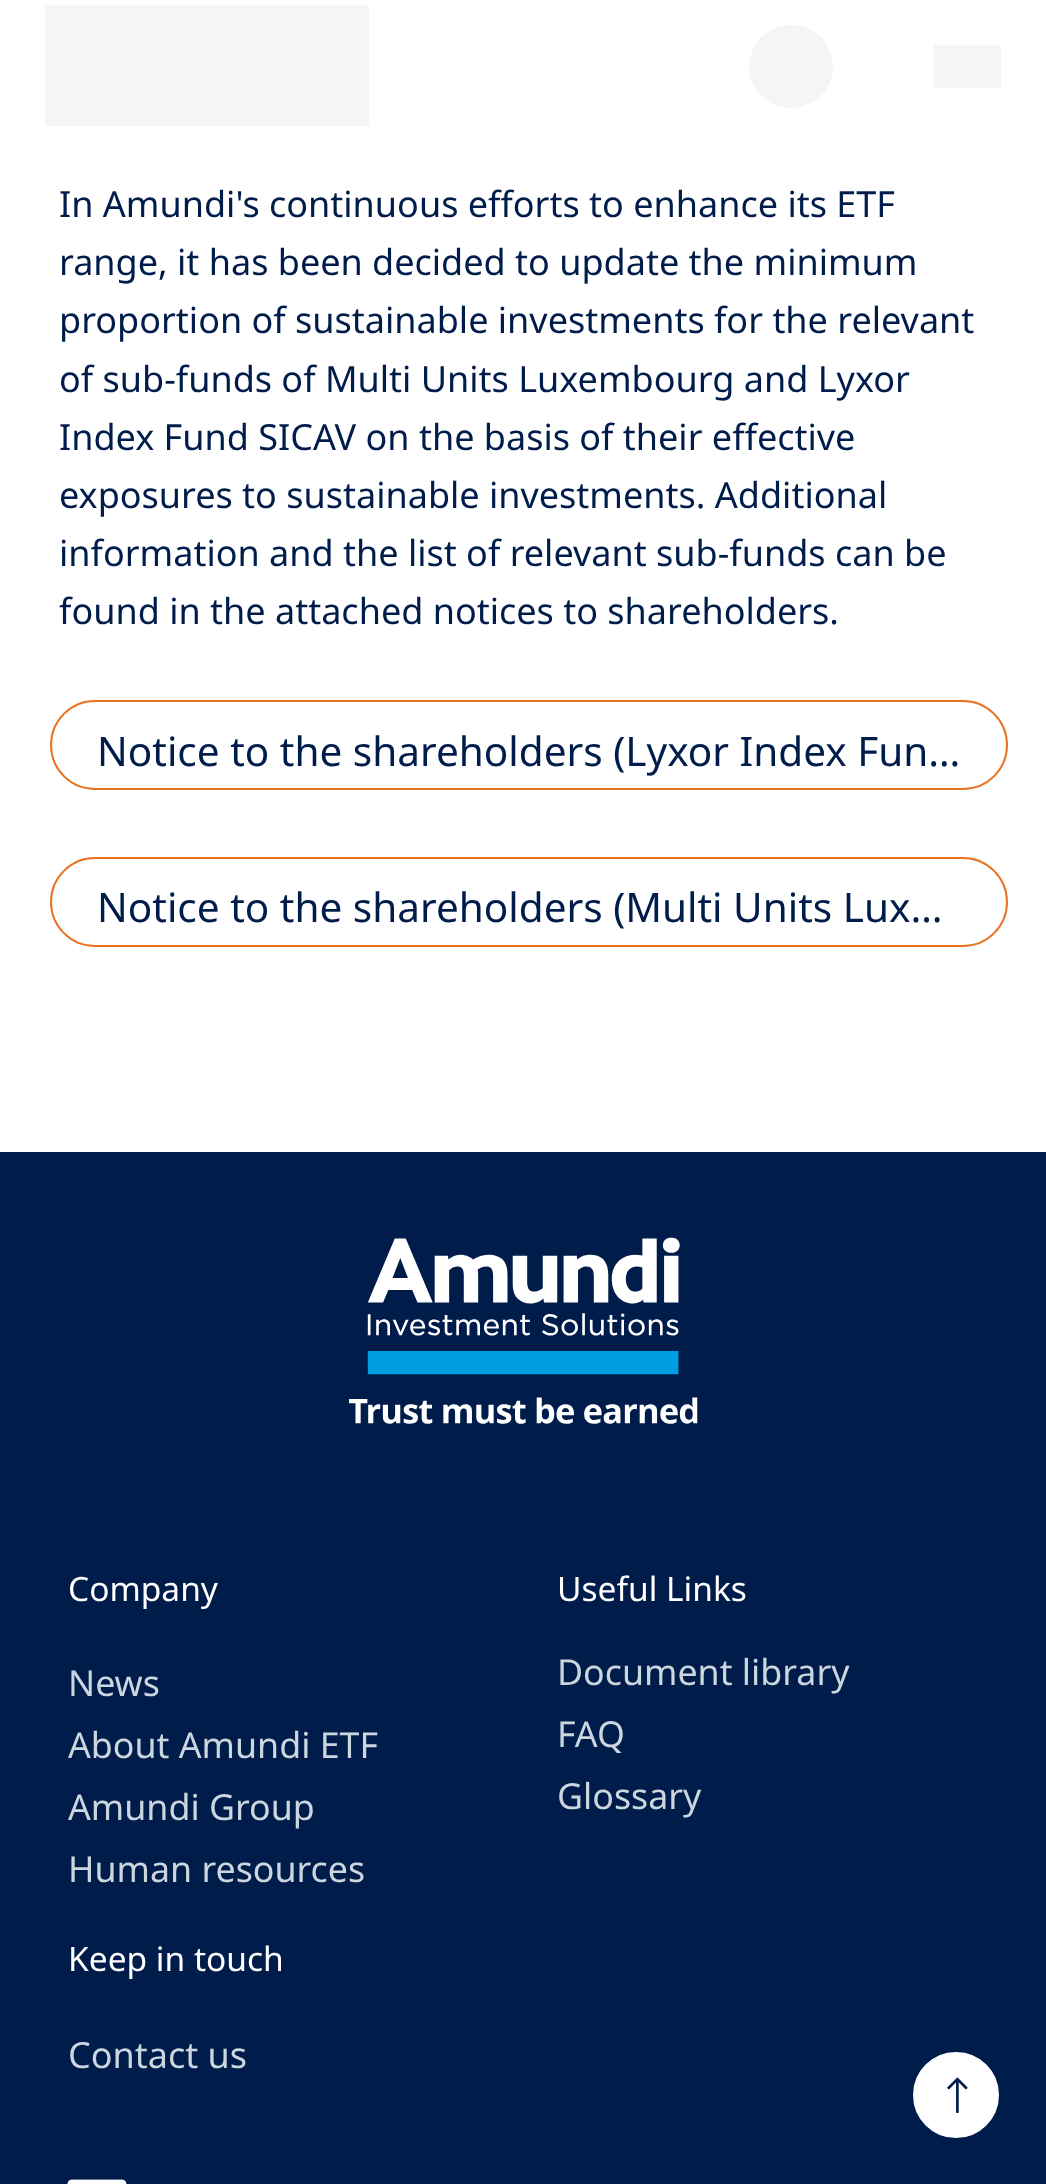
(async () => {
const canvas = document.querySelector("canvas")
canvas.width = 1046
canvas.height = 2184
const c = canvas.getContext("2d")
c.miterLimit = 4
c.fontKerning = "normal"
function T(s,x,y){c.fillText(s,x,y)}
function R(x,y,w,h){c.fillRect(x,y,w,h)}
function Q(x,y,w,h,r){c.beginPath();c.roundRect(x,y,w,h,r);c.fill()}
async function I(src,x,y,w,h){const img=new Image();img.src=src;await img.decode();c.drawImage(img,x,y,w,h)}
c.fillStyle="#fff"
R(0,0,1046,2184)
c.fillStyle="#f5f5f5"
R(45,5,324,121)
Q(749,25,84,83,41.5)
R(934,45,67,43)
c.font="36px Noto Sans"
c.fillStyle="#001c4b"
T("In Amundi's continuous efforts to enhance its ETF",59,217)
T("range, it has been decided to update the minimum",59,275)
T("proportion of sustainable investments for the relevant",59,333)
T("of sub-funds of Multi Units Luxembourg and Lyxor",59,392)
T("Index Fund SICAV on the basis of their effective",59,450)
T("exposures to sustainable investments. Additional",59,508)
T("information and the list of relevant sub-funds can be",59,566)
T("found in the attached notices to shareholders.",59,624)
c.beginPath()
c.roundRect(51,701,956,88,44)
c.strokeStyle="#ea7323"
c.lineWidth=2
c.stroke()
c.font="40.5px Noto Sans"
T("Notice to the shareholders (Lyxor Index Fun…",97,766)
c.beginPath()
c.roundRect(51,858,956,88,44)
c.stroke()
T("Notice to the shareholders (Multi Units Lux…",97,922)
R(0,1152,1046,1032)
c.fillStyle="#fff"
c.beginPath()
c.arc(956,2095,44,0,7)
c.fill()
c.strokeStyle="#001c4b"
c.stroke()
await I("1.png",947,2077,21,36)
await I("2.png",349,1237,349,187)
c.font="33.5px Noto Sans"
T("Company",68,1601)
c.font="35.75px Noto Sans"
c.fillStyle="#cbd6de"
T("News",68,1696)
T("About Amundi ETF",68,1758)
T("Amundi Group",68,1820)
T("Human resources",68,1882)
c.font="33.5px Noto Sans"
c.fillStyle="#fff"
T("Useful Links",557,1601)
c.font="35.75px Noto Sans"
c.fillStyle="#cbd6de"
T("Document library",557,1685)
T("FAQ",557,1747)
T("Glossary",557,1809)
c.font="33.5px Noto Sans"
c.fillStyle="#fff"
T("Keep in touch",68,1971)
c.font="36px Noto Sans"
c.fillStyle="#cbd6de"
T("Contact us",68,2068)
await I("3.png",67,2179,60,5)
})()
